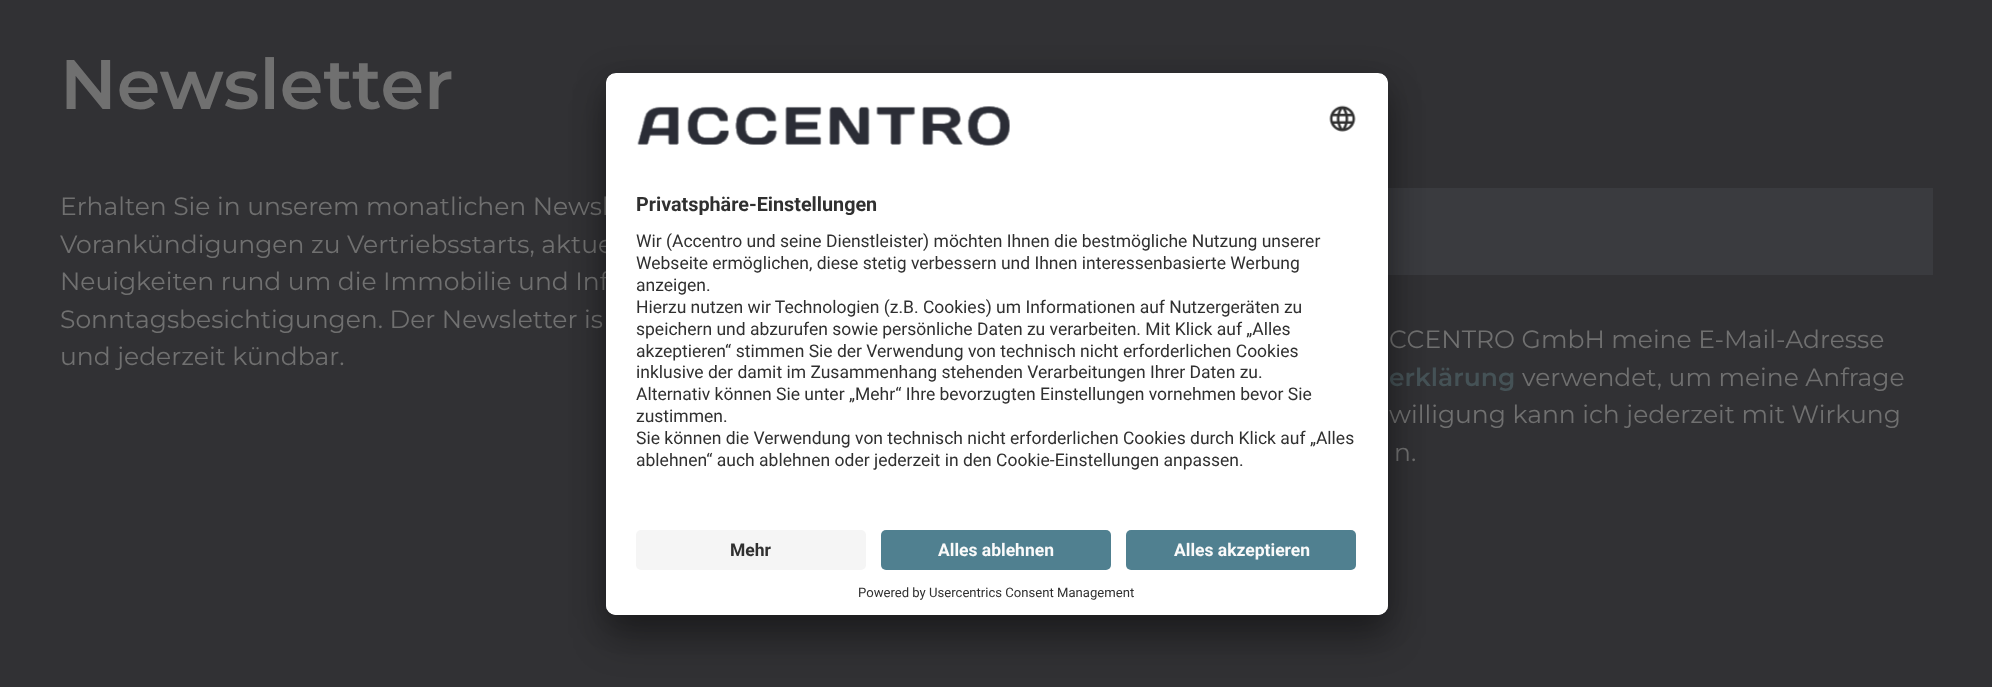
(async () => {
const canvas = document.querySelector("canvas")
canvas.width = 1992
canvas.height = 687
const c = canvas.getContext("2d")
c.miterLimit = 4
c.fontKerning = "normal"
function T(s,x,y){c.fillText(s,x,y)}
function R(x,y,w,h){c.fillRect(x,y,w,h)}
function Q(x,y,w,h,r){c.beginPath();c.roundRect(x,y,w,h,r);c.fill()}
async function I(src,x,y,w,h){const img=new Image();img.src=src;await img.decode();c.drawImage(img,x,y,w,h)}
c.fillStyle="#313134"
R(0,0,1992,687)
c.font="600 70px Montserrat"
c.fillStyle="#707070"
T("Newsletter",60,109)
c.font="25px Montserrat"
T("Erhalten Sie in unserem monatlichen Newsl",60,215)
T("Vorankündigungen zu Vertriebsstarts, aktue",60,253)
T("Neuigkeiten rund um die Immobilie und Inf",60,290)
T("Sonntagsbesichtigungen. Der Newsletter is",60,328)
T("und jederzeit kündbar.",60,365)
c.fillStyle="#3a3b3f"
R(1388,188,545,87)
c.fillStyle="#707070"
T("CCENTRO GmbH meine E-Mail-Adresse",1389,348)
c.font="600 25px Montserrat"
c.fillStyle="#455256"
T("erklärung",1389,386)
c.font="25px Montserrat"
c.fillStyle="#707070"
T("verwendet, um meine Anfrage",1522,386)
T("willigung kann ich jederzeit mit Wirkung",1389,423)
T("n.",1394,461)
c.fillStyle="#0000004d"
c.filter="blur(17.5px)"
c.beginPath()
c.roundRect(606,98,782,542,10)
c.fill()
c.filter="none"
c.fillStyle="#00000038"
c.filter="blur(16px)"
c.beginPath()
c.roundRect(606,79,782,542,10)
c.fill()
c.filter="none"
c.fillStyle="#fff"
Q(606,73,782,542,10)
c.save()
c.beginPath()
c.roundRect(606,73,782,542,10)
c.clip()
c.beginPath()
c.roundRect(606,73,782,447,[10,10,0,0])
c.clip()
R(606,74,782,446)
c.restore()
await I("1.png",637,106,373,40)
await I("2.png",1329,105,27,27)
c.font="bold 19.75px Roboto"
c.fillStyle="#303030"
T("Privatsphäre-Einstellungen",636,211)
c.font="17.5px Roboto"
T("Wir (Accentro und seine Dienstleister) möchten Ihnen die bestmögliche Nutzung unserer",636,247)
T("Webseite ermöglichen, diese stetig verbessern und Ihnen interessenbasierte Werbung",636,269)
T("anzeigen.",636,291)
T("Hierzu nutzen wir Technologien (z.B. Cookies) um Informationen auf Nutzergeräten zu",636,313)
T("speichern und abzurufen sowie persönliche Daten zu verarbeiten. Mit Klick auf „Alles",636,335)
T("akzeptieren“ stimmen Sie der Verwendung von technisch nicht erforderlichen Cookies",636,357)
T("inklusive der damit im Zusammenhang stehenden Verarbeitungen Ihrer Daten zu.",636,378)
T("Alternativ können Sie unter „Mehr“ Ihre bevorzugten Einstellungen vornehmen bevor Sie",636,400)
T("zustimmen.",636,422)
T("Sie können die Verwendung von technisch nicht erforderlichen Cookies durch Klick auf „Alles",636,444)
T("ablehnen“ auch ablehnen oder jederzeit in den Cookie-Einstellungen anpassen.",636,466)
c.fillStyle="#fff"
c.beginPath()
c.roundRect(606,520,782,95,[0,0,10,10])
c.fill()
c.fillStyle="#f5f5f5"
Q(636,530,230,40,5)
c.font="bold 17.5px Roboto"
c.fillStyle="#303030"
T("Mehr",730,556)
c.fillStyle="#508090"
Q(881,530,230,40,5)
c.fillStyle="#fafafa"
T("Alles ablehnen",938,556)
c.fillStyle="#508090"
Q(1126,530,230,40,5)
c.fillStyle="#fafafa"
T("Alles akzeptieren",1174,556)
c.font="13.1px Roboto"
c.fillStyle="#303030"
T("Powered by Usercentrics Consent Management",858,597)
})()
